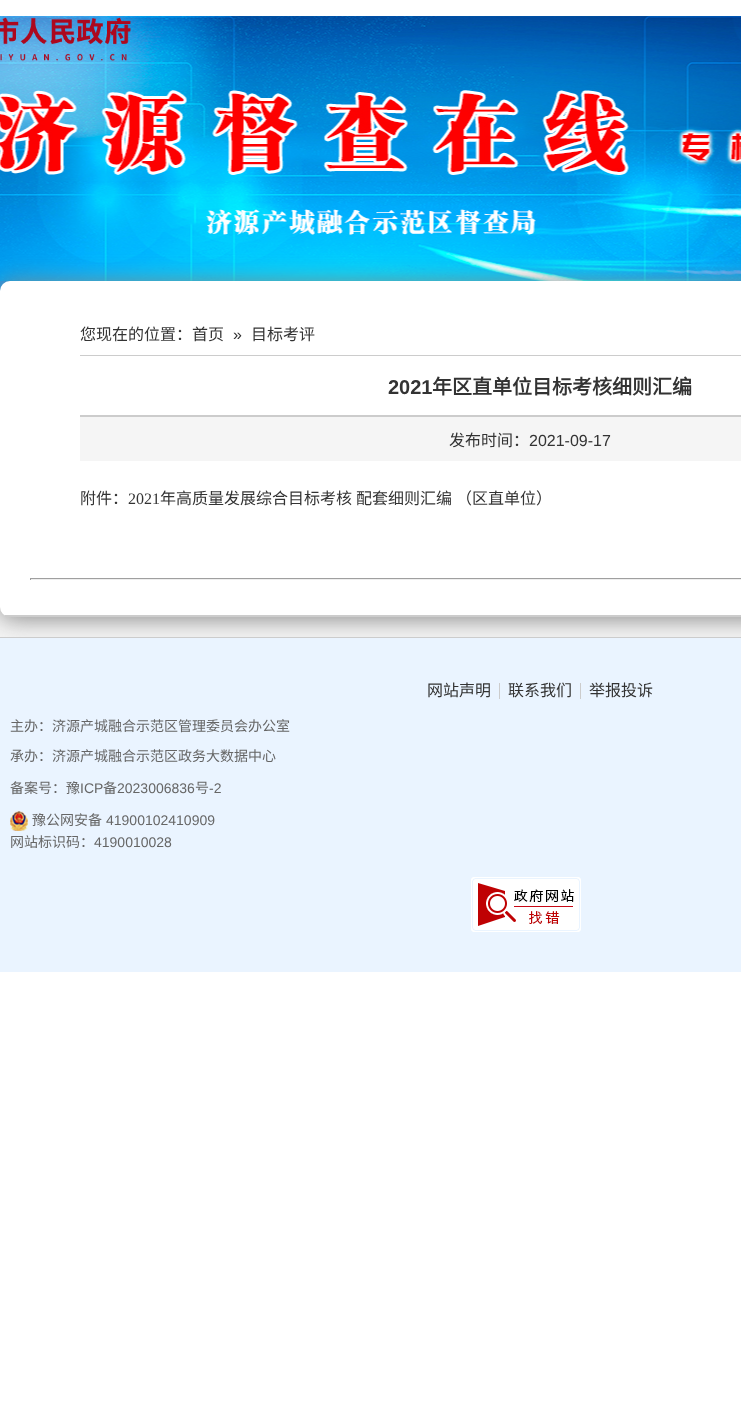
(async () => {
const canvas = document.querySelector("canvas")
canvas.width = 741
canvas.height = 1404
const c = canvas.getContext("2d")
c.miterLimit = 4
c.fontKerning = "normal"
function T(s,x,y){c.fillText(s,x,y)}
function R(x,y,w,h){c.fillRect(x,y,w,h)}
function Q(x,y,w,h,r){c.beginPath();c.roundRect(x,y,w,h,r);c.fill()}
async function I(src,x,y,w,h){const img=new Image();img.src=src;await img.decode();c.drawImage(img,x,y,w,h)}
c.fillStyle="#fff"
R(0,0,741,1404)
await I("1.png",0,16,741,265)
await I("2.png",0,17,131,44)
c.fillStyle="#f5f5f5"
R(0,607,741,30)
await I("3.png",0,281,10,10)
c.fillStyle="#888"
c.filter="blur(12.5px)"
c.beginPath()
c.roundRect(0,283,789,336,10)
c.fill()
c.filter="none"
c.fillStyle="#fff"
Q(0,281,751,336,10)
c.fillStyle="#ccc"
R(5,615,736,2)
R(80,355,661,1)
c.font="16px Noto Sans CJK SC"
c.fillStyle="#333"
T("您现在的位置：首页",80,340)
c.font="16px Liberation Sans"
T("»",233,340)
c.font="16px Noto Sans CJK SC"
T("目标考评",251,340)
c.fillStyle="#ccc"
R(80,415,661,2)
c.font="bold 20px Liberation Sans"
c.fillStyle="#333"
T("2021",388,394)
c.font="bold 20px Noto Sans CJK SC"
T("年区直单位目标考核细则汇编",432,394)
c.fillStyle="#f5f5f5"
R(80,417,661,44)
c.font="16px Noto Sans CJK SC"
c.fillStyle="#333"
T("发布时间：",449,446)
c.font="16px Liberation Sans"
T("2021-09-17",529,446)
c.font="16px Noto Sans CJK SC"
T("附件：",80,504)
c.font="16px Liberation Serif"
T("2021",128,504)
c.font="16px Noto Sans CJK SC"
T("年高质量发展综合目标考核",160,504)
T("配套细则汇编",356,504)
T("（区直单位）",456,504)
c.fillStyle="#9f9f9f"
R(30,578,711,1)
c.fillStyle="#eee"
R(30,579,711,1)
c.fillStyle="#9f9f9f"
R(30,578,1,2)
c.fillStyle="#ccc"
R(0,637,741,1)
c.fillStyle="#eaf4ff"
R(0,638,741,334)
c.fillStyle="#ccc"
R(499,683,1,16)
c.fillStyle="#333"
T("网站声明",427,696)
c.fillStyle="#ccc"
R(580,683,1,16)
c.fillStyle="#333"
T("联系我们",508,696)
T("举报投诉",589,696)
c.font="14px Noto Sans CJK SC"
c.fillStyle="#666"
T("主办：济源产城融合示范区管理委员会办公室",10,731)
T("承办：济源产城融合示范区政务大数据中心",10,761)
T("备案号：豫",10,793)
c.font="14px Liberation Sans"
T("ICP",80,793)
c.font="14px Noto Sans CJK SC"
T("备",103,793)
c.font="14px Liberation Sans"
T("2023006836",117,793)
c.font="14px Noto Sans CJK SC"
T("号",195,793)
c.font="14px Liberation Sans"
T("-2",209,793)
await I("4.png",10,811,18,20)
c.font="14px Noto Sans CJK SC"
T("豫公网安备",32,825)
c.font="14px Liberation Sans"
T("41900102410909",106,825)
c.font="14px Noto Sans CJK SC"
T("网站标识码：",10,847)
c.font="14px Liberation Sans"
T("4190010028",94,847)
await I("5.png",471,877,110,55)
})()
